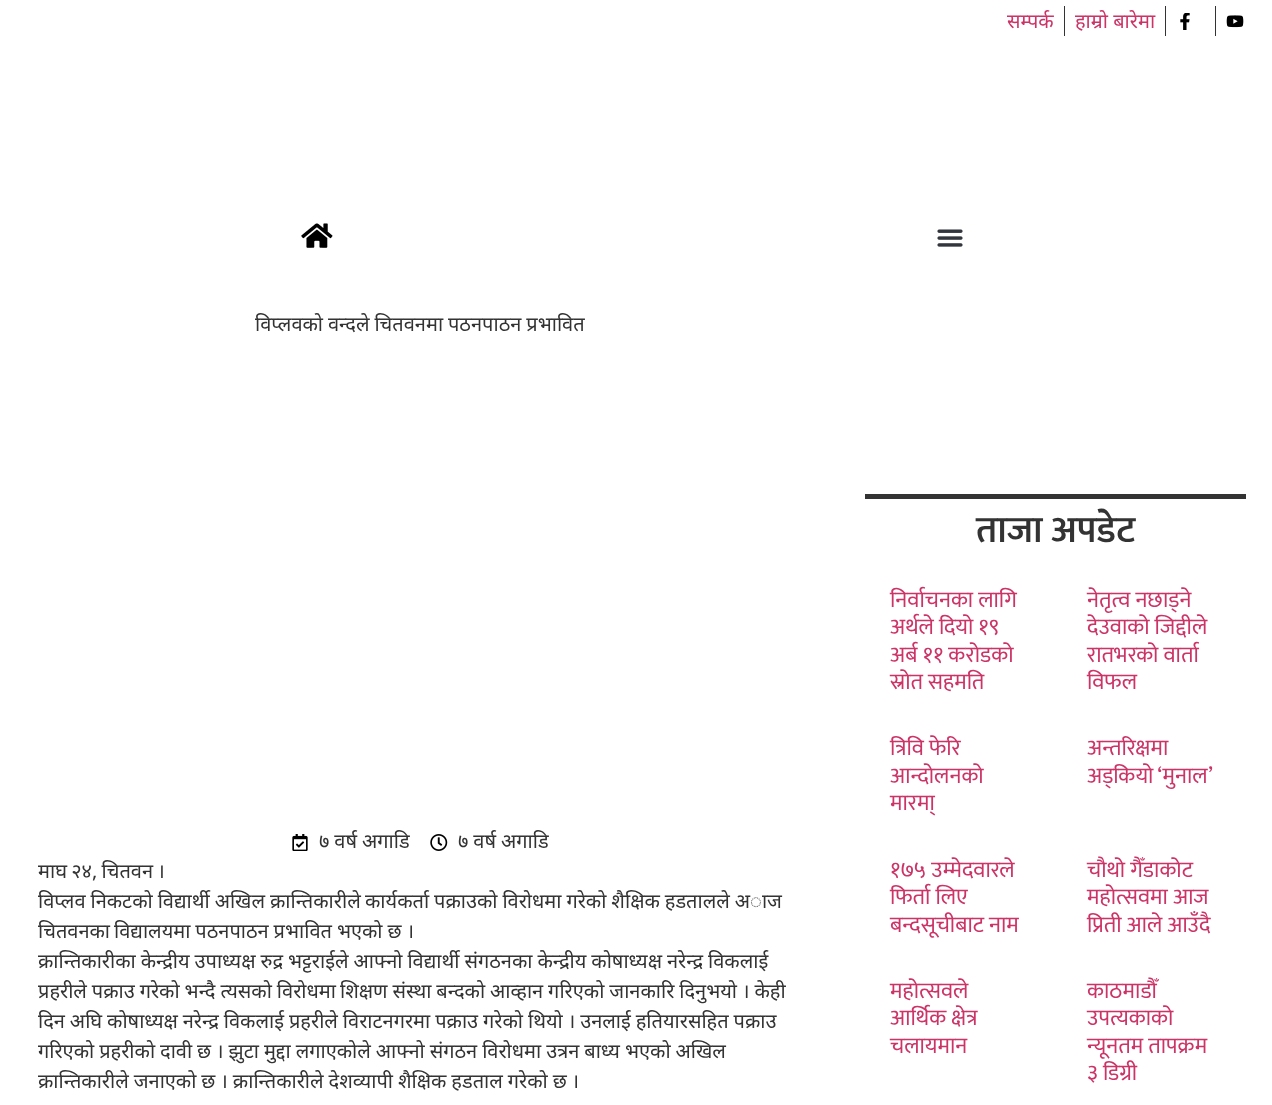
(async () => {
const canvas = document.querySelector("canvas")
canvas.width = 1272
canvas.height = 1105
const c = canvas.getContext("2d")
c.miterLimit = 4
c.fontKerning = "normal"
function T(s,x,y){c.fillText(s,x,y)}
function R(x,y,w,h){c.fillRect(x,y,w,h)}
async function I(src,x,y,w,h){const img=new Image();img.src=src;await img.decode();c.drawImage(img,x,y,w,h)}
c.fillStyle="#fff"
R(0,0,1272,1105)
c.font="20px Noto Sans"
c.fillStyle="#c36"
T("सम्पर्क",1007,28)
c.fillStyle="#333"
R(1064,6,1,30)
c.fillStyle="#c36"
T("हाम्रो बारेमा",1075,28)
c.fillStyle="#333"
R(1165,6,1,30)
await I("1.png",1180,13,10,17)
R(1215,6,1,30)
await I("2.png",1226,15,18,13)
await I("3.png",301,223,32,25)
await I("4.png",937,229,26,18)
c.wordSpacing="-0.25px"
T("विप्लवकाे वन्दले चितवनमा पठनपाठन प्रभावित",255,331)
await I("5.png",292,834,16,17)
T("७ वर्ष अगाडि",319,848)
await I("6.png",430,834,18,17)
T("७ वर्ष अगाडि",458,848)
c.wordSpacing="-1px"
T("माघ २४, चितवन ।",38,878)
c.wordSpacing="-0.25px"
T("विप्लव निकटको विद्यार्थी अखिल क्रान्तिकारीले",38,908)
T("कार्यकर्ता पक्राउकाे विराेधमा गरेकाे शैक्षिक हडतालले अाज",365,908)
c.wordSpacing="0px"
T("चितवनका",38,938)
c.wordSpacing="-0.25px"
T("विद्यालयमा पठनपाठन प्रभावित भएको छ ।",114,938)
T("क्रान्तिकारीका केन्द्रीय उपाध्यक्ष रुद्र भट्टराईले आफ्नो विद्यार्थी संगठनका केन्द्रीय कोषाध्यक्ष नरेन्द्र विकलाई",38,968)
T("प्रहरीले पक्राउ गरेको भन्दै त्यसको विरोधमा",38,998)
T("शिक्षण संस्था बन्दको आव्हान गरिएको जानकारि दिनुभयाे । केही",340,998)
T("दिन अघि काेषाध्यक्ष नरेन्द्र विकलाई प्रहरीले विराटनगरमा पक्राउ गरेकाे थियाे । उनलाई हतियारसहित पक्राउ",38,1028)
T("गरिएको प्रहरीकाे दावी छ । झुटा मुद्दा लगाएकोले आफ्नो संगठन विरोधमा उत्रन बाध्य भएको अखिल",38,1058)
T("क्रान्तिकारीले जनाएको छ । क्रान्तिकारीले देशव्यापी शैक्षिक हडताल गरेकाे छ ।",38,1088)
R(865,494,381,5)
c.wordSpacing="0px"
c.font="600 37.5px Mukta"
T("ताजा अपडेट",976,542)
c.font="22.5px Mukta"
c.fillStyle="#c36"
T("निर्वाचनका लागि",890,607)
T("अर्थले दियो १९",890,634)
T("अर्ब ११ करोडको",890,662)
T("स्रोत सहमति",890,689)
T("नेतृत्व नछाड्ने",1087,607)
T("देउवाको जिद्दीले",1087,634)
T("रातभरको वार्ता",1087,662)
T("विफल",1087,689)
T("त्रिवि फेरि",890,755)
T("आन्दोलनको",890,783)
T("मारमा्",890,810)
T("अन्तरिक्षमा",1087,755)
T("अड्कियो ‘मुनाल’",1087,783)
T("१७५ उम्मेदवारले",890,877)
T("फिर्ता लिए",890,904)
T("बन्दसूचीबाट नाम",890,932)
T("चौथो गैँडाकोट",1087,877)
T("महोत्सवमा आज",1087,904)
T("प्रिती आले आउँदै",1087,932)
T("महोत्सवले",890,998)
T("आर्थिक क्षेत्र",890,1025)
T("चलायमान",890,1053)
T("काठमाडौँ",1087,998)
T("उपत्यकाको",1087,1025)
T("न्यूनतम तापक्रम",1087,1053)
T("३ डिग्री",1087,1080)
})()
